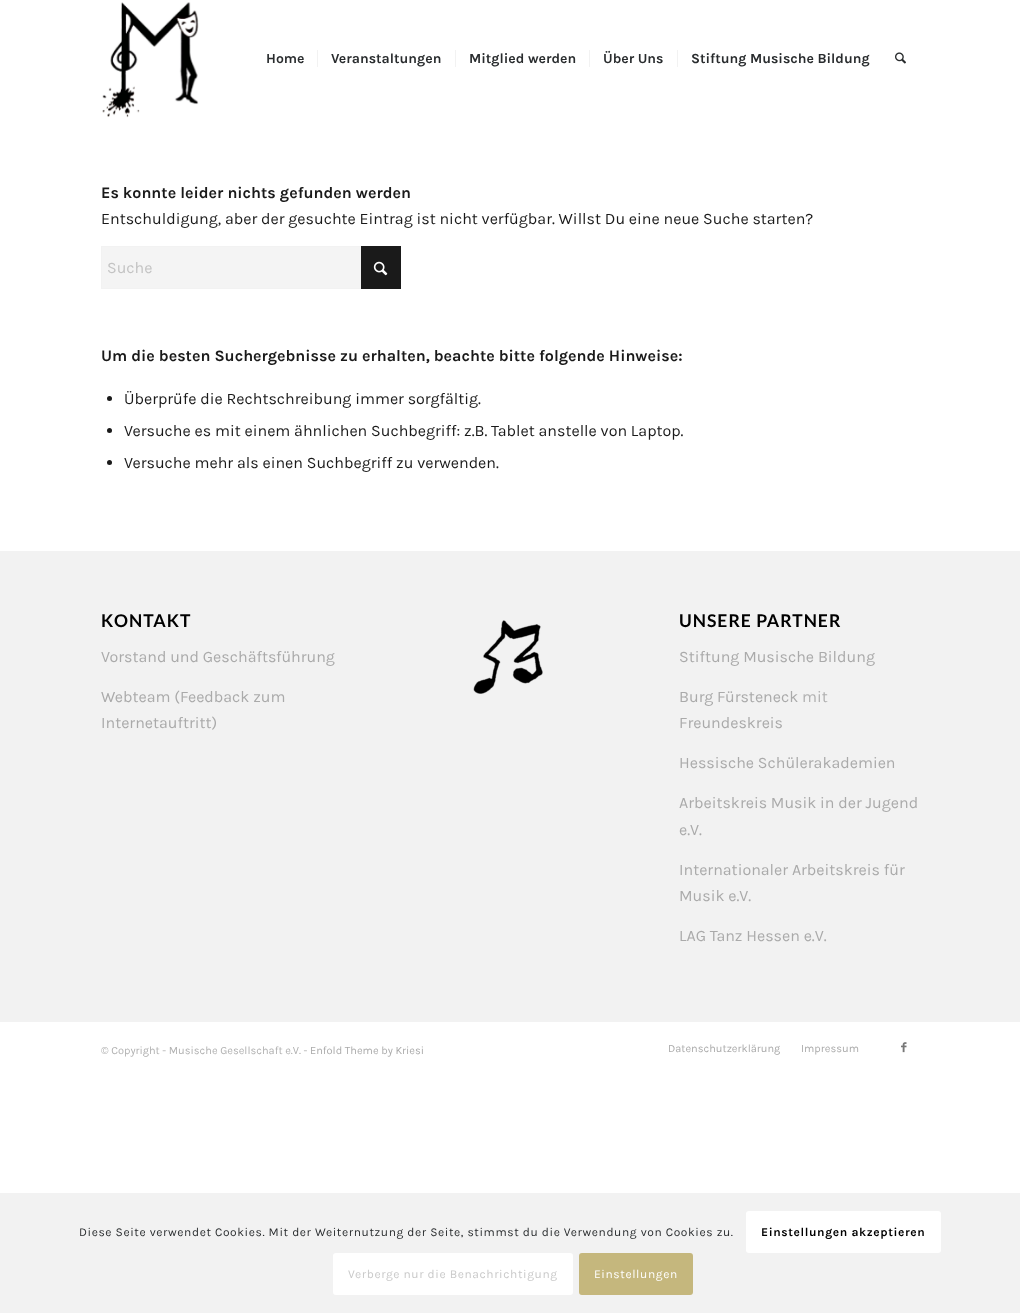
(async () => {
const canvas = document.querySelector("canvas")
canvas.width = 1020
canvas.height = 1313
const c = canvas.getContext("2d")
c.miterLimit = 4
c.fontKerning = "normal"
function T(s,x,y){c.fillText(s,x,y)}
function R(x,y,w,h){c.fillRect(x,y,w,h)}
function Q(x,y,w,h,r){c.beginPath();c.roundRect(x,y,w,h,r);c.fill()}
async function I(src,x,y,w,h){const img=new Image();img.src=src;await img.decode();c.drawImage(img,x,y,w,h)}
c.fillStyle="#fff"
R(0,0,1020,1313)
await I("1.png",102,2,97,116)
c.font="bold 14px Karla"
c.fillStyle="#292c2e"
T("Home",266,63)
T("Veranstaltungen",331,63)
c.fillStyle="#f2f2f2"
R(317,50,1,17)
c.fillStyle="#292c2e"
T("Mitglied werden",469,63)
c.fillStyle="#f2f2f2"
R(455,50,1,17)
c.fillStyle="#292c2e"
T("Über Uns",603,63)
c.fillStyle="#f2f2f2"
R(589,50,1,17)
c.fillStyle="#292c2e"
T("Stiftung Musische Bildung",691,63)
c.fillStyle="#f2f2f2"
R(677,50,1,17)
await I("2.png",895,52,11,12)
c.font="bold 16px Karla"
c.fillStyle="#1a1a1a"
T("Es konnte leider nichts gefunden werden",101,198)
c.font="16px Karla"
T("Entschuldigung, aber der gesuchte Eintrag ist nicht verfügbar. Willst Du eine neue Suche starten?",101,224)
c.fillStyle="#f4f4f4"
R(102,247,259,41)
c.strokeStyle="#f2f2f2"
c.strokeRect(101.5,246.5,299,42)
c.fillStyle="#1a1a1a"
R(361,246,40,43)
c.fillStyle="#c3c3c3"
T("Suche",107,273)
await I("3.png",373,261,15,15)
c.font="bold 16px Karla"
c.fillStyle="#1a1a1a"
T("Um die besten Suchergebnisse zu erhalten, beachte bitte folgende Hinweise:",101,361)
c.beginPath()
c.arc(109.5,398.5,2.5,0,7)
c.fill()
c.font="16px Karla"
T("Überprüfe die Rechtschreibung immer sorgfältig.",124,404)
c.beginPath()
c.arc(109.5,430.5,2.5,0,7)
c.fill()
T("Versuche es mit einem ähnlichen Suchbegriff: z.B. Tablet anstelle von Laptop.",124,436)
c.beginPath()
c.arc(109.5,462.5,2.5,0,7)
c.fill()
T("Versuche mehr als einen Suchbegriff zu verwenden.",124,468)
c.fillStyle="#f2f2f2"
R(0,551,1020,471)
c.letterSpacing="1px"
c.font="bold 17.5px Lato"
c.fillStyle="#000"
T("KONTAKT",101,627)
c.letterSpacing="0px"
c.font="16px Karla"
c.fillStyle="#aaa"
T("Vorstand und Geschäftsführung",101,662)
T("Webteam (Feedback zum",101,702)
T("Internetauftritt)",101,728)
await I("4.png",473,620,70,74)
c.letterSpacing="1px"
c.font="bold 17.5px Lato"
c.fillStyle="#000"
T("UNSERE PARTNER",679,627)
c.letterSpacing="0px"
c.font="16px Karla"
c.fillStyle="#aaa"
T("Stiftung Musische Bildung",679,662)
T("Burg Fürsteneck",679,702)
c.fillStyle="#b0b0b0"
T("mit",802,702)
c.fillStyle="#aaa"
T("Freundeskreis",679,728)
T("Hessische Schülerakademien",679,768)
T("Arbeitskreis Musik in der Jugend",679,808)
T("e.V.",679,835)
T("Internationaler Arbeitskreis für",679,875)
T("Musik e.V.",679,901)
T("LAG Tanz Hessen e.V.",679,941)
c.font="11px Karla"
c.fillStyle="#b0b0b0"
T("© Copyright - Musische Gesellschaft e.V. -",101,1054)
c.fillStyle="#aaa"
T("Enfold Theme by Kriesi",310,1054)
T("Datenschutzerklärung",668,1052)
T("Impressum",801,1052)
await I("5.png",901,1042,6,11)
c.fillStyle="#f2f2f2"
R(0,1193,1020,120)
c.letterSpacing="0.6px"
c.font="12px Karla"
c.fillStyle="#292c2e"
T("Diese Seite verwendet Cookies. Mit der Weiternutzung der Seite, stimmst du die Verwendung von Cookies zu.",79,1236)
c.fillStyle="#fff"
Q(746,1211,195,42,3)
c.font="bold 12px Karla"
c.fillStyle="#000"
T("Einstellungen akzeptieren",761,1236)
c.fillStyle="#fff"
c.beginPath()
c.roundRect(334,1254,238,40,2)
c.fill()
c.strokeStyle="#fff"
c.lineWidth=2
c.stroke()
c.font="12px Karla"
c.fillStyle="#c9c9c9"
T("Verberge nur die Benachrichtigung",348,1278)
c.fillStyle="#c5b77d"
c.beginPath()
c.roundRect(580,1254,112,40,2)
c.fill()
c.strokeStyle="#c5b77d"
c.stroke()
c.fillStyle="#fff"
T("Einstellungen",594,1278)
})()
